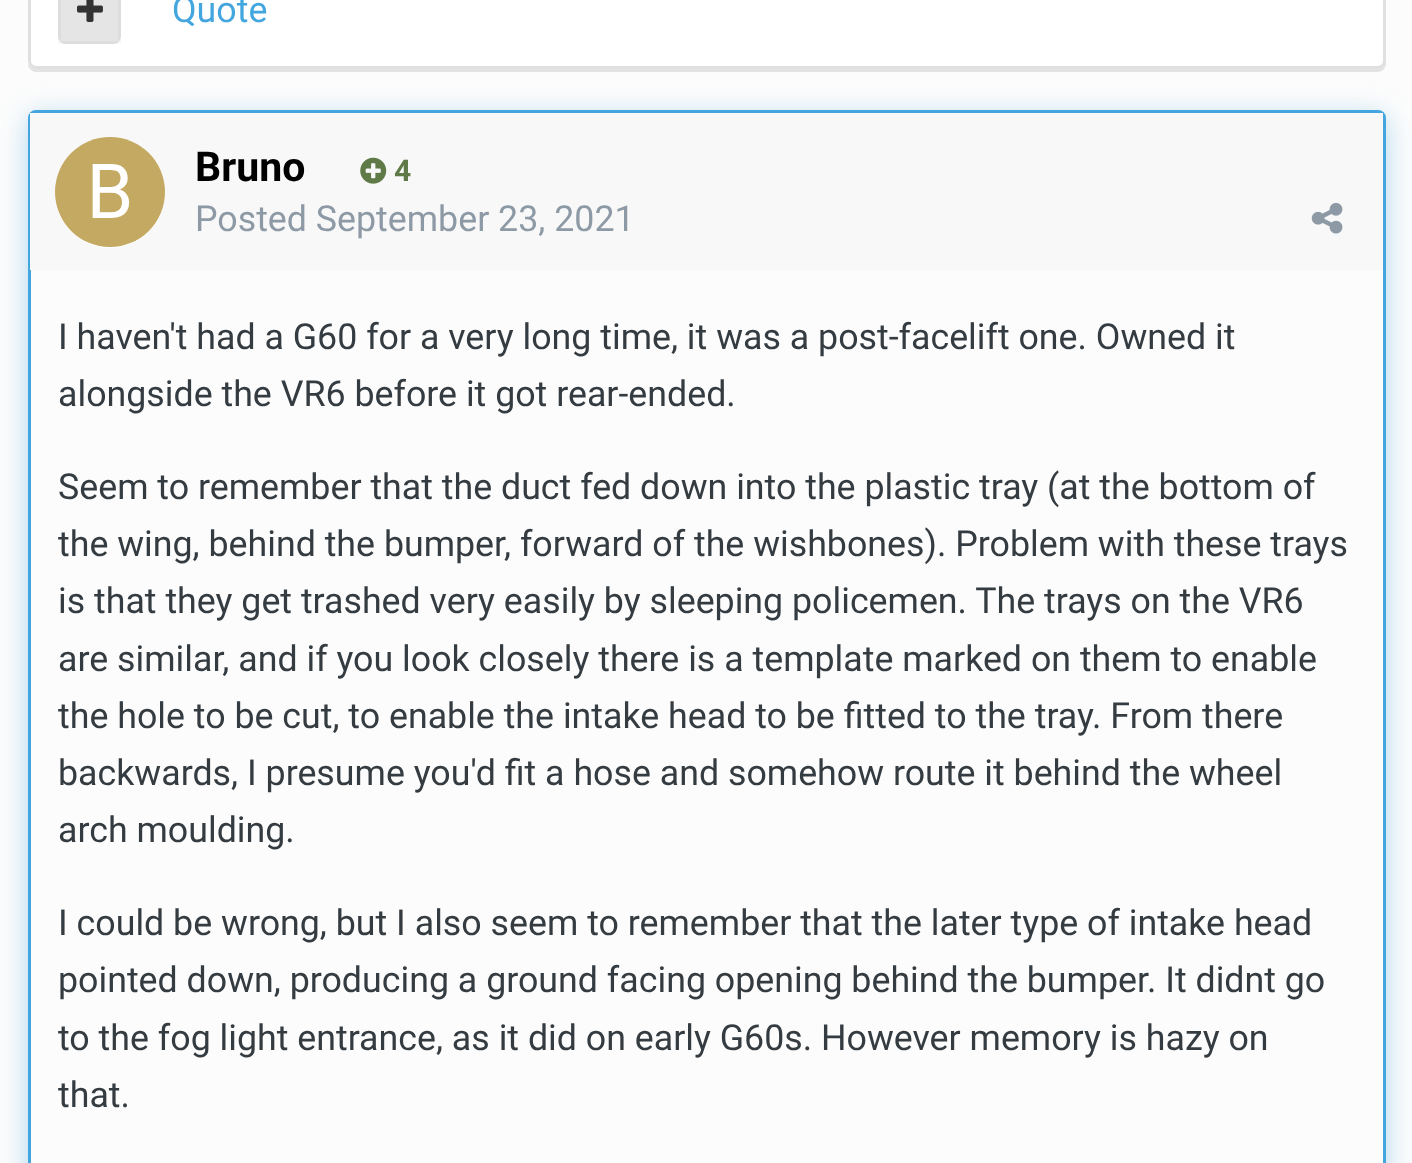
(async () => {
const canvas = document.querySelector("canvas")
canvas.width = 1412
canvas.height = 1163
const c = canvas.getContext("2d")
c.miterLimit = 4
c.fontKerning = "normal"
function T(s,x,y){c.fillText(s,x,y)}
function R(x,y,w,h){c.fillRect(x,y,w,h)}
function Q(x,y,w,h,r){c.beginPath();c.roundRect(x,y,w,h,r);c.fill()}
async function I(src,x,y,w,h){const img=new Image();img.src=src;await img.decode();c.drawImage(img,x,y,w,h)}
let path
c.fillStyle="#fcfcfc"
R(0,0,1412,1163)
c.fillStyle="#e3e3e3"
path = new Path2D("M28 63v1c0 4 4 8 8 8h1342c4 0 8-4 8-8v-4c0 5-4 9-8 9h-1342c-4 0-7-3-8-6z")
c.fill(path)
c.fillStyle="#fff"
c.beginPath()
c.roundRect(29.5,-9.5,1355,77,6.5)
c.fill()
c.strokeStyle="#e0e0e0"
c.lineWidth=3
c.stroke()
c.fillStyle="#e5e5e5"
Q(58,-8,63,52,8)
c.strokeStyle="#00000008"
c.strokeRect(59.5,-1.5,60,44)
await I("1.png",77,0,26,22)
c.font="35.75px Roboto"
c.fillStyle="#43a6df"
T("Quote",172,22)
c.fillStyle="#43a6df66"
c.filter="blur(14px)"
c.beginPath()
c.roundRect(28,116,1358,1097,8)
c.fill()
c.filter="none"
c.fillStyle="#fcfcfc"
c.beginPath()
c.roundRect(29.5,111.5,1355,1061,6.5)
c.fill()
c.strokeStyle="#43a6df"
c.stroke()
c.fillStyle="#f8f8f8"
R(30,113,1353,157)
c.fillStyle="#fff"
c.beginPath()
c.arc(110,193,55,0,7)
c.fill()
await I("2.png",55,137,110,110)
c.font="bold 41px Roboto"
c.fillStyle="#000"
T("Bruno",195,181)
await I("3.png",360,157,27,27)
c.font="bold 30px Roboto"
c.fillStyle="#5f7a47"
T("4",394,181)
c.font="35.75px Roboto"
c.fillStyle="#8d9aa6"
T("Posted September 23, 2021",195,231)
await I("4.png",1311,202,32,32)
c.fillStyle="#353c41"
T("I haven't had a G60 for a very long time, it was a post-facelift one. Owned it",58,349)
T("alongside the VR6 before it got rear-ended.",58,406)
T("Seem to remember that the duct fed down into the plastic tray (at the bottom of",58,499)
T("the wing, behind the bumper, forward of the wishbones). Problem with these trays",58,556)
T("is that they get trashed very easily by sleeping policemen. The trays on the VR6",58,613)
T("are similar, and if you look closely there is a template marked on them to enable",58,671)
T("the hole to be cut, to enable the intake head to be fitted to the tray. From there",58,728)
T("backwards, I presume you'd fit a hose and somehow route it behind the wheel",58,785)
T("arch moulding.",58,842)
T("I could be wrong, but I also seem to remember that the later type of intake head",58,935)
T("pointed down, producing a ground facing opening behind the bumper. It didnt go",58,992)
T("to the fog light entrance, as it did on early G60s. However memory is hazy on",58,1050)
T("that.",58,1107)
})()
